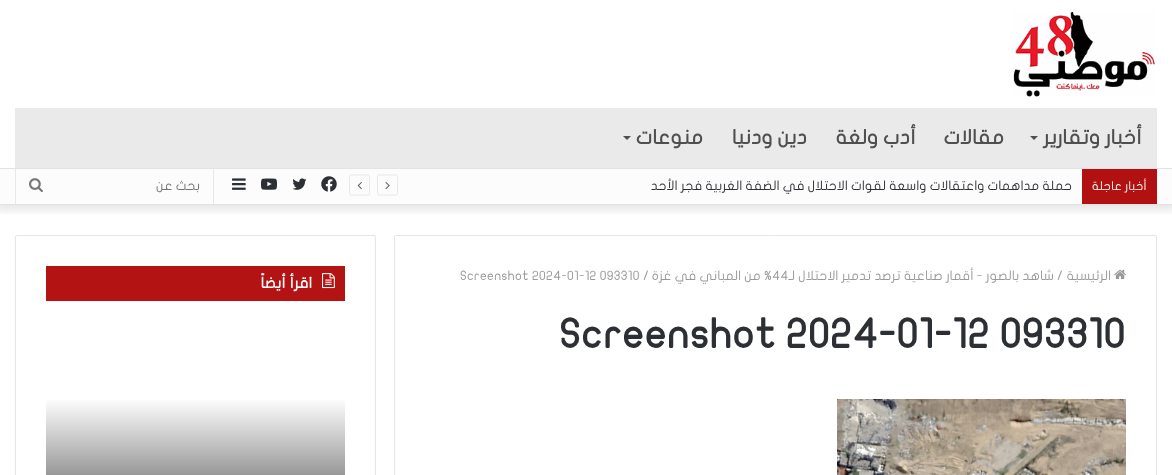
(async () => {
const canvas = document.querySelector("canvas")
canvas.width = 1172
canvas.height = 475
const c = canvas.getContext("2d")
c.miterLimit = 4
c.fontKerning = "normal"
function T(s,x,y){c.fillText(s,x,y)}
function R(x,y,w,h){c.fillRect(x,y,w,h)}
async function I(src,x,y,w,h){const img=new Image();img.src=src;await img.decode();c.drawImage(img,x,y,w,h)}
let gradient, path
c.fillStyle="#fff"
R(0,0,1172,475)
c.save()
c.beginPath()
c.rect(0,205,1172,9)
c.clip()
c.fillStyle="#0000001a"
c.filter="blur(5px)"
c.beginPath()
c.rect(-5,-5,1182,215)
c.fill()
c.filter="none"
c.restore()
await I("1.png",1013,11,142,86)
c.fillStyle="#eaeaea"
R(15,108,1142,60)
c.direction="rtl"
c.font="bold 20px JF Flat"
c.fillStyle="#4f4f4f"
T("أخبار وتقارير",1142,144)
path = new Path2D("M1030 136h8l-4 4z")
c.fill(path)
T("مقالات",1004,144)
T("أدب ولغة",916,144)
T("دين ودنيا",807,144)
T("منوعات",703,144)
path = new Path2D("M623 136h8l-4 4z")
c.fill(path)
c.fillStyle="#fcfcfc"
R(0,169,1172,35)
c.fillStyle="#e3e3e3"
R(0,168,1172,1)
R(0,204,1172,1)
c.fillStyle="#b21111"
R(1082,169,75,35)
c.font="12px JF Flat"
c.fillStyle="#fff"
T("أخبار عاجلة",1147,190)
c.font="13px JF Flat"
c.fillStyle="#2c2f34"
T("حملة مداهمات واعتقالات واسعة لقوات الاحتلال في الضفة الغربية فجر الأحد",1072,190)
path = new Path2D("M396 195h-17c-1 0-1.5-.5-1.5-1.5v-17c0-.5 .5-1.5 1.5-1.5h17c1 0 1.5 1 1.5 1.5v17c0 1-.5 1.5-1.5 1.5z")
c.strokeStyle="#e8e8e8"
c.stroke(path)
await I("2.png",385,182,5,8)
path = new Path2D("M368 195h-17c-1 0-1.5-.5-1.5-1.5v-17c0-.5 .5-1.5 1.5-1.5h17c1 0 1.5 1 1.5 1.5v17c0 1-.5 1.5-1.5 1.5z")
c.stroke(path)
await I("3.png",357,182,5,8)
await I("4.png",321,176,16,16)
await I("5.png",292,178,15,12)
await I("6.png",261,178,16,12)
await I("7.png",232,178,14,12)
c.fillStyle="#e8e8e8"
R(213,169,1,35)
R(15,169,1,35)
c.fillStyle="#757575"
T("بحث عن",200,190)
await I("8.png",29,178,14,14)
c.beginPath()
c.roundRect(394.5,235.5,762,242,1.5)
c.strokeStyle="#e6e6e6"
c.stroke()
await I("9.png",1114,269,12,11)
c.fillStyle="#999"
T("الرئيسية",1111,280)
c.direction="ltr"
T("/",1057,280)
c.direction="rtl"
T("شاهد بالصور -",1054,280)
T("أقمار صناعية ترصد تدمير الاحتلال لـ",974,280)
c.direction="ltr"
T("44",772,280)
c.direction="rtl"
T("% من المباني في غزة",772,280)
c.direction="ltr"
T("/",643,280)
T("Screenshot 2024-01-12 093310",460,280)
c.font="bold 41px JF Flat"
c.fillStyle="#2c2f34"
T("Screenshot 2024-01-12 093310",559,348)
await I("10.png",837,399,289,76)
c.beginPath()
c.roundRect(15.5,235.5,360,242,1.5)
c.stroke()
c.fillStyle="#b31313"
R(46,266,299,35)
await I("11.png",322,273,13,16)
c.direction="rtl"
c.font="bold 15px JF Flat"
c.fillStyle="#fff"
T("اقرأ أيضاً",312,288)
gradient = c.createLinearGradient(196,398,196,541)
gradient.addColorStop(0,"#fff")
gradient.addColorStop(1,"#404040")
c.fillStyle = gradient
R(46,400,299,75)
})()
